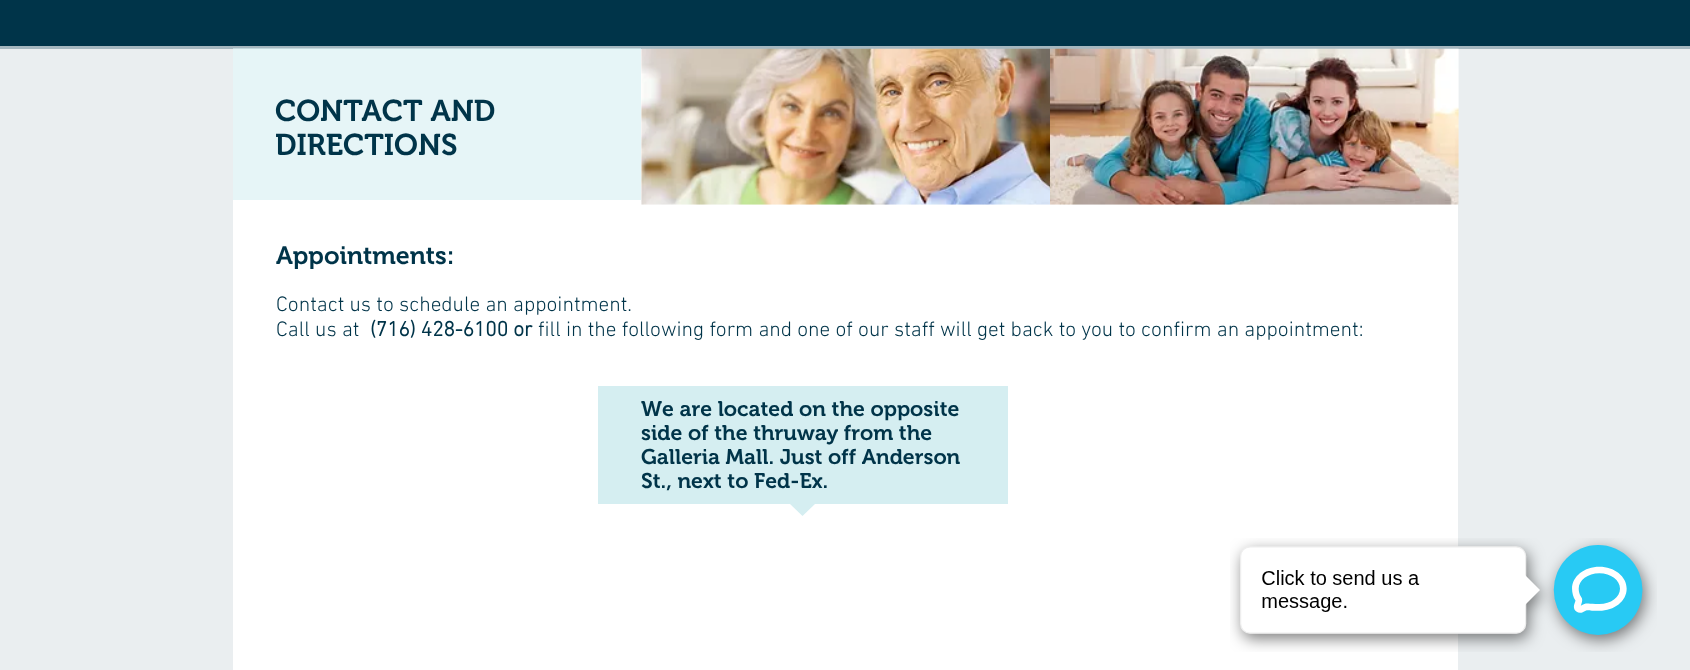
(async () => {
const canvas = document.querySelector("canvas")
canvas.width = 1690
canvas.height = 670
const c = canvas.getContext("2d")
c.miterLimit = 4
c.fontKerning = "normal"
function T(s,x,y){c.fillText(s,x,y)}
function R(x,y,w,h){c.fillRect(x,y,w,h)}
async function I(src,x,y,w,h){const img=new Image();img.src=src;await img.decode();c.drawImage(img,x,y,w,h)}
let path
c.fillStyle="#eaeef0"
R(0,0,1690,670)
c.fillStyle="#003449"
R(0,0,1690,46)
c.fillStyle="#a5b7bf"
R(0,46,1690,3)
c.fillStyle="#c2d8dd"
R(233,48,408,1)
c.fillStyle="#fff"
R(233,49,1225,621)
c.fillStyle="#e6f5f7"
R(233,49,408,151)
c.font="600 30px 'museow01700'"
c.fillStyle="#003449"
T("CONTACT AND",275,121)
T("DIRECTIONS",275,155)
await I("1.png",641,48,409,157)
await I("2.png",1050,48,409,157)
c.font="600 25px 'museow01700'"
T("Appointments:",276,264)
c.font="300 21.25px 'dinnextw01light'"
T("Contact us to schedule an appointment.",276,311)
T("Call us at",276,336)
c.font="bold 21.25px 'dinnextw01light'"
T("(716) 428-6100 or",370,336)
c.font="300 21.25px 'dinnextw01light'"
T("fill in the following form and one of our staff will get back to you to confirm an appointment:",538,336)
c.fillStyle="#d5eef1"
R(598,386,410,118)
path = new Path2D("M790 504h25l-12.5 12z")
c.fill(path)
c.font="600 21.25px 'museow01700'"
c.fillStyle="#003449"
T("We are located on the opposite",641,416)
T("side of the thruway from the",641,440)
T("Galleria Mall. Just off Anderson",641,464)
T("St., next to Fed-Ex.",641,488)
await I("3.png",1230,538,427,114)
})()
